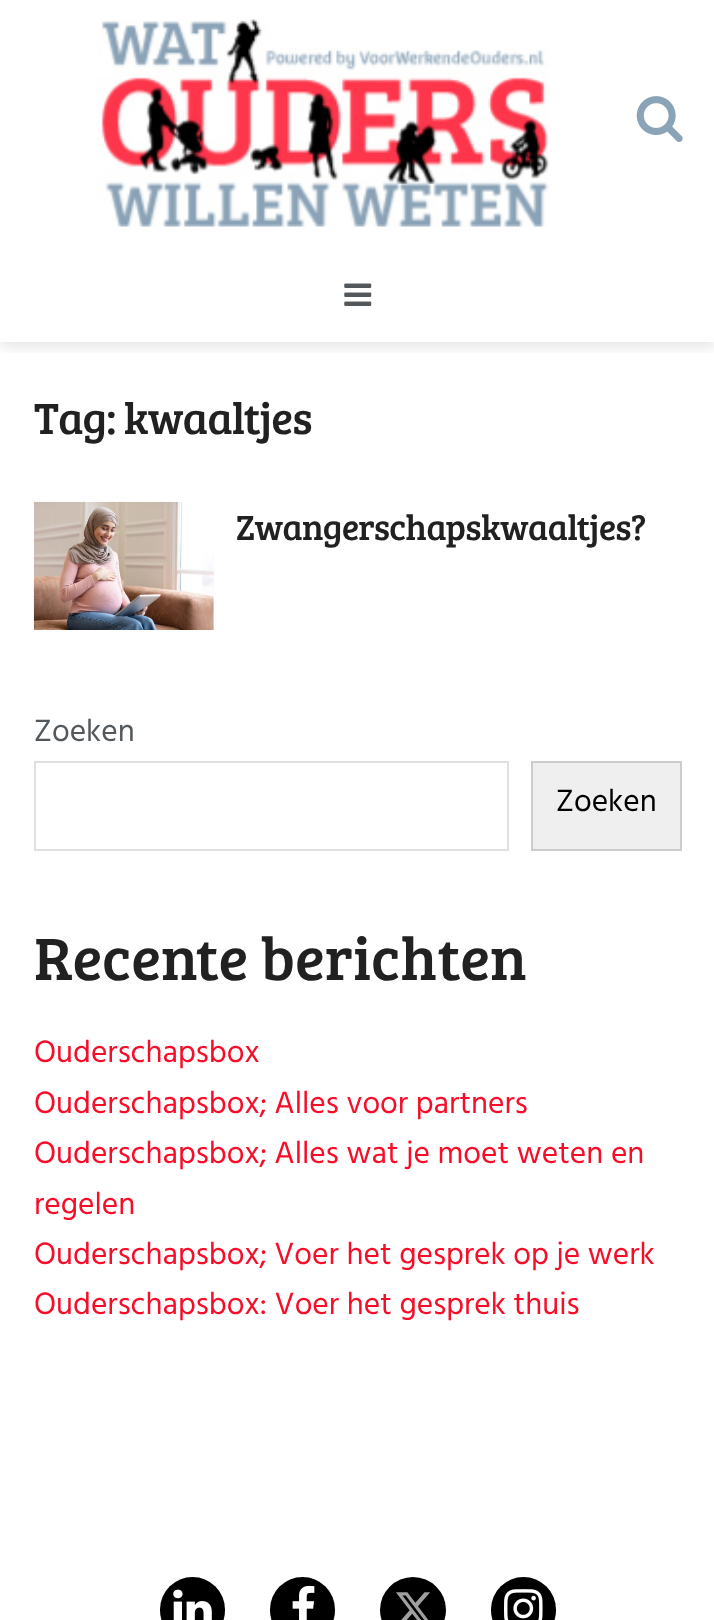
(async () => {
const canvas = document.querySelector("canvas")
canvas.width = 714
canvas.height = 1620
const c = canvas.getContext("2d")
c.miterLimit = 4
c.fontKerning = "normal"
function T(s,x,y){c.fillText(s,x,y)}
function R(x,y,w,h){c.fillRect(x,y,w,h)}
function Q(x,y,w,h,r){c.beginPath();c.roundRect(x,y,w,h,r);c.fill()}
async function I(src,x,y,w,h){const img=new Image();img.src=src;await img.decode();c.drawImage(img,x,y,w,h)}
c.fillStyle="#fff"
R(0,0,714,1620)
c.save()
c.beginPath()
c.rect(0,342,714,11)
c.clip()
c.fillStyle="#0000001a"
c.filter="blur(7px)"
c.beginPath()
c.rect(0,5,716,342)
c.fill()
c.filter="none"
c.restore()
await I("1.png",97,19,453,208)
await I("2.png",636,96,47,46)
await I("3.png",344,283,28,23)
c.letterSpacing="-0.9px"
c.font="45px Bree Serif"
c.fillStyle="#212121"
T("Tag: kwaaltjes",34,434)
c.fillStyle="#f7f7f7"
R(213,502,1,128)
await I("4.png",33,501,181,129)
c.letterSpacing="-0.75px"
c.font="36px Bree Serif"
c.fillStyle="#212121"
T("Zwangerschapskwaaltjes?",236,540)
c.letterSpacing="0px"
c.font="31.5px Hind"
c.fillStyle="#53585c"
T("Zoeken",34,741)
c.strokeStyle="#e0e0e0"
c.lineWidth=2
c.strokeRect(35,762,473,88)
c.fillStyle="#efefef"
c.beginPath()
c.rect(532,762,149,88)
c.fill()
c.strokeStyle="#ccc"
c.stroke()
c.fillStyle="#000"
T("Zoeken",556,811)
c.font="61.5px Bree Serif"
c.fillStyle="#212121"
T("Recente berichten",34,980)
c.font="31.5px Hind"
c.fillStyle="#f70d28"
T("Ouderschapsbox",34,1062)
T("Ouderschapsbox; Alles voor partners",34,1113)
T("Ouderschapsbox; Alles wat je moet weten en",34,1163)
T("regelen",34,1214)
T("Ouderschapsbox; Voer het gesprek op je werk",34,1264)
T("Ouderschapsbox: Voer het gesprek thuis",34,1314)
c.fillStyle="#000"
Q(160,1577,65,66,32.5)
await I("5.png",173,1589,39,31)
Q(270,1577,65,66,32.5)
await I("6.png",292,1585,23,35)
c.beginPath()
c.arc(413,1610,33,0,7)
c.fill()
await I("7.png",396,1592,34,28)
Q(491,1577,65,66,32.5)
await I("8.png",504,1589,39,31)
})()
